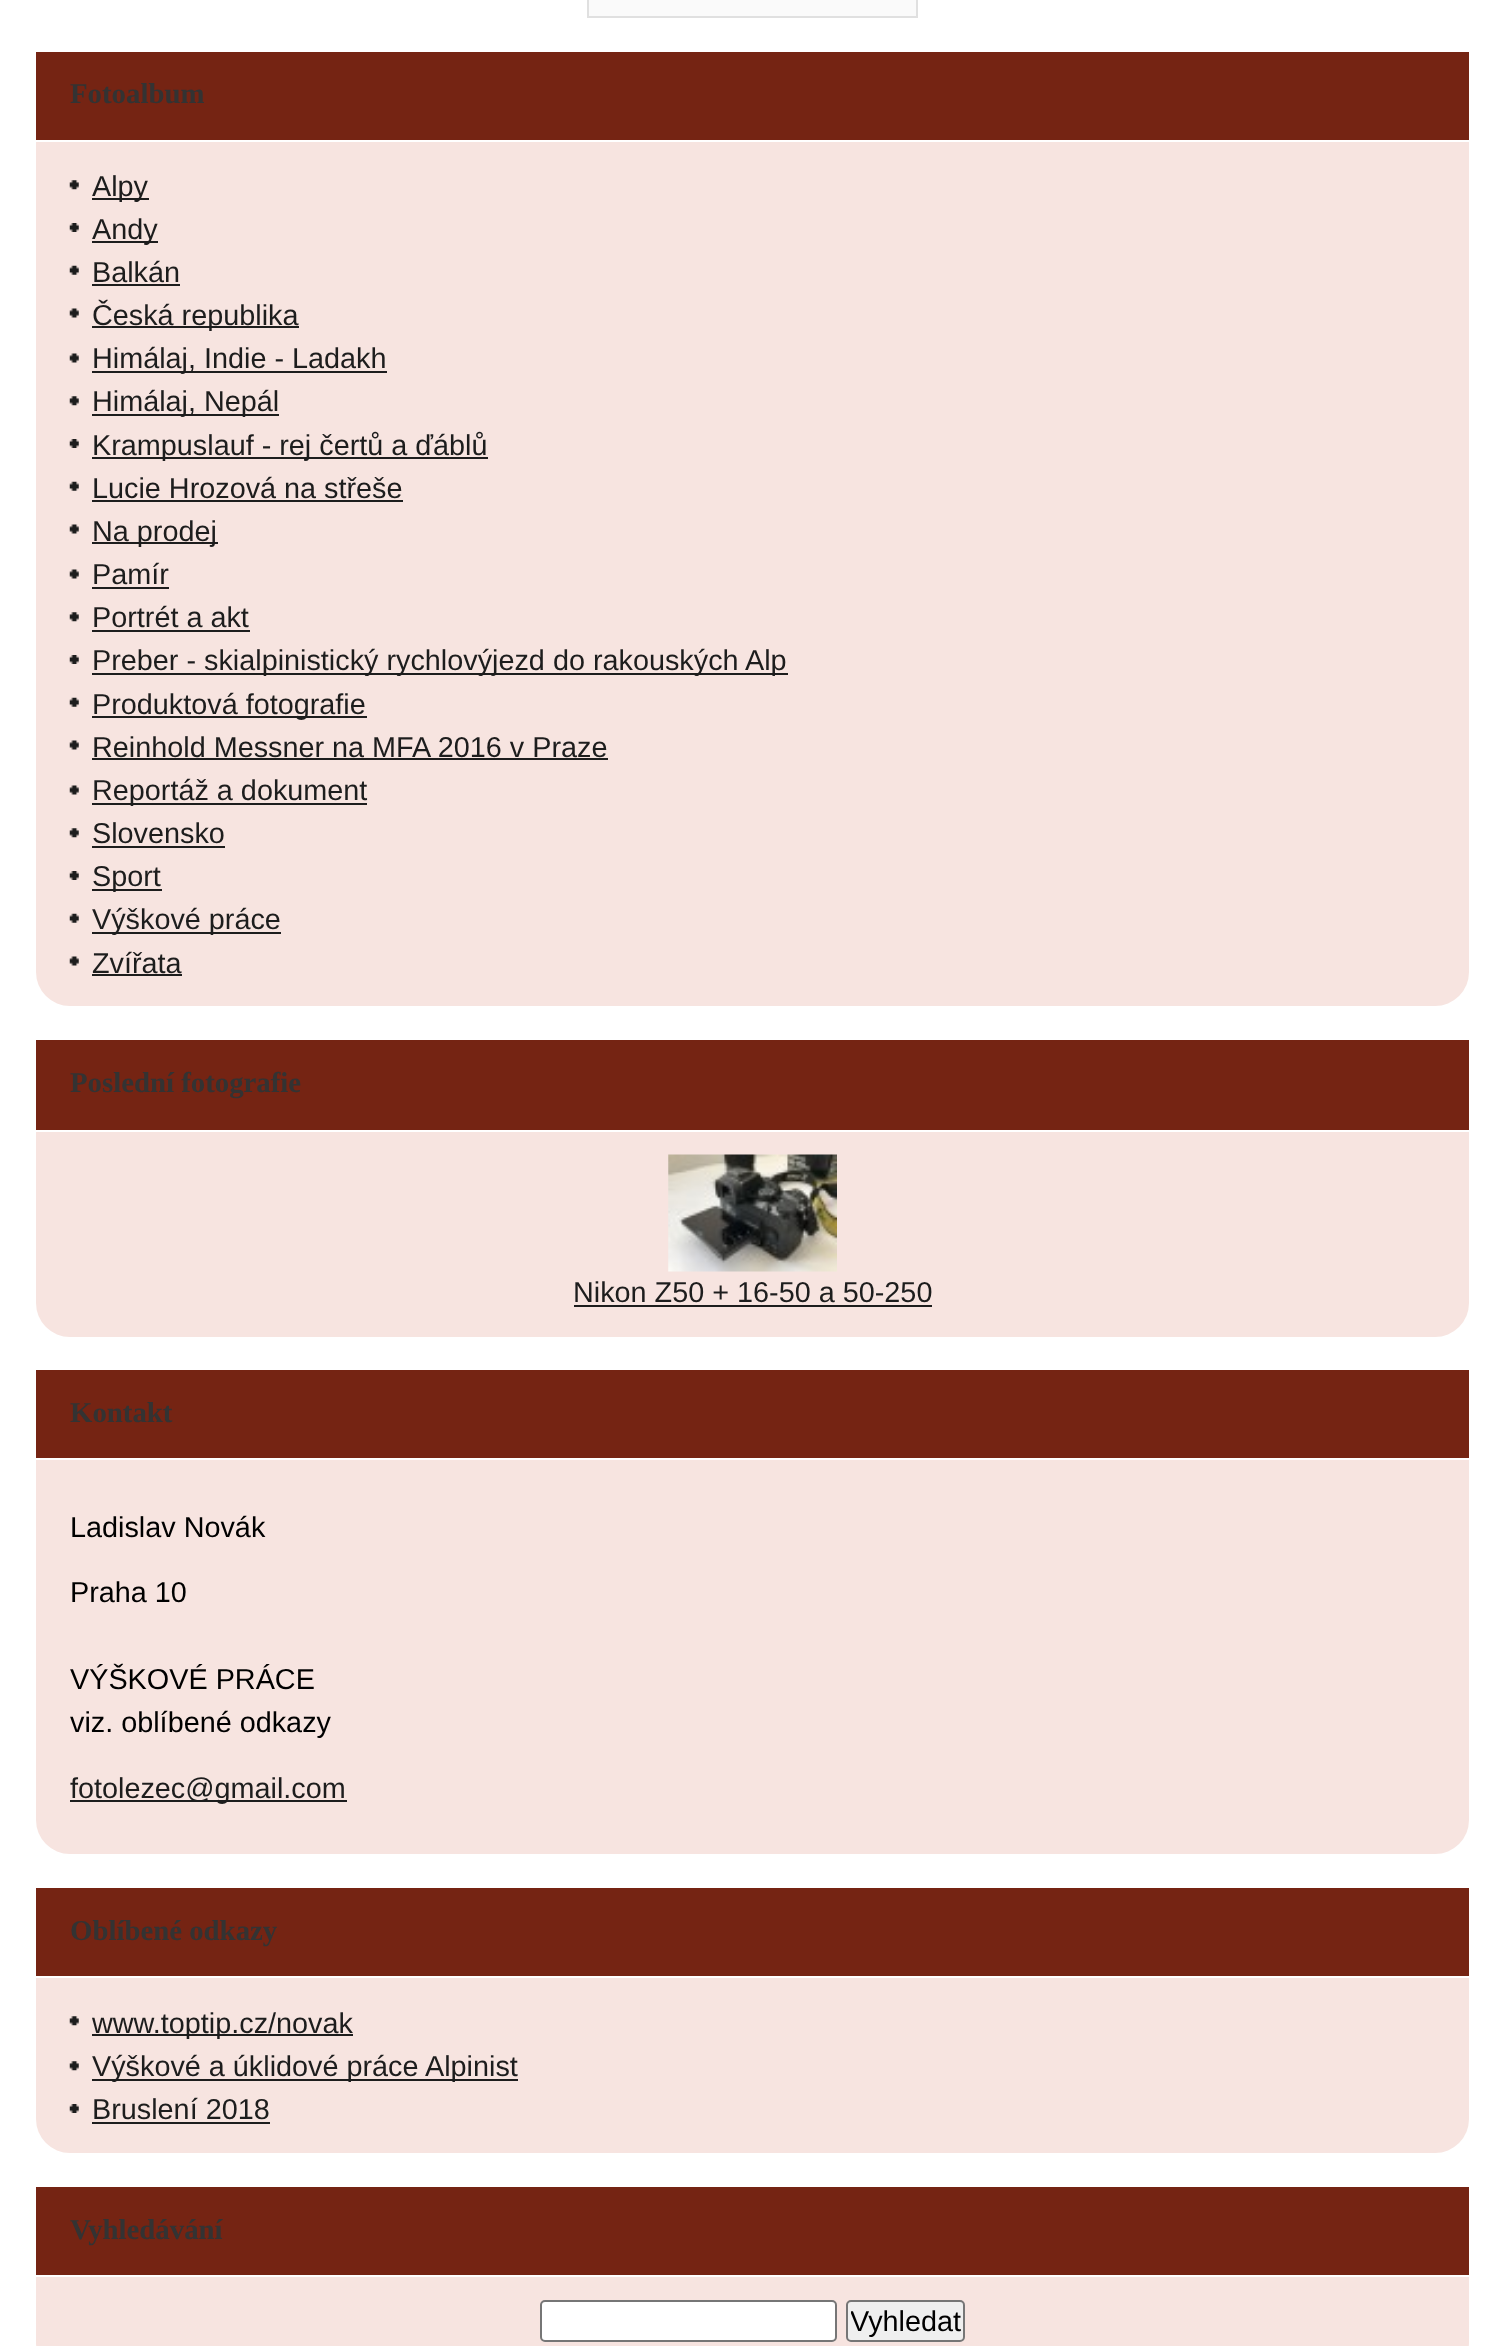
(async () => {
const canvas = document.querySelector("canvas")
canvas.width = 1492
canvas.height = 2346
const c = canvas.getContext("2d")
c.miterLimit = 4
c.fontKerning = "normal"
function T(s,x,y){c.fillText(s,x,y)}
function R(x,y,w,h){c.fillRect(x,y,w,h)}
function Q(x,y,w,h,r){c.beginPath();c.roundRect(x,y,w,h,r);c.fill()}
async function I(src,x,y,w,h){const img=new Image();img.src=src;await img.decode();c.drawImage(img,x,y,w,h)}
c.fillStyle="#fff"
R(0,0,1492,2346)
c.fillStyle="#fafafa"
c.beginPath()
c.rect(588,-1,329,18)
c.fill()
c.strokeStyle="#e0e0e0"
c.lineWidth=2
c.stroke()
c.fillStyle="#f7e4e0"
Q(36,52,1433,954,34)
c.fillStyle="#752413"
R(36,52,1433,88)
c.fillStyle="#fff"
R(36,140,1433,2)
c.font="bold 28.8px Liberation Serif"
c.fillStyle="#333"
T("Fotoalbum",70,103)
await I("1.png",69,180,10,10)
c.fillStyle="#1d1d1d"
R(92,198,57,2)
c.font="28.8px Liberation Sans"
T("Alpy",92,196)
await I("2.png",69,223,10,9)
R(92,241,66,2)
T("Andy",92,239)
await I("3.png",69,265,10,10)
T("Balkán",92,282)
R(92,284,88,2)
await I("4.png",69,308,10,10)
R(92,326,207,2)
T("Česká republika",92,325)
await I("4.png",69,353,10,10)
R(92,371,295,2)
T("Himálaj, Indie - Ladakh",92,368)
await I("1.png",69,396,10,10)
R(92,414,187,2)
T("Himálaj, Nepál",92,411)
await I("2.png",69,439,10,9)
R(92,457,396,2)
T("Krampuslauf - rej čertů a ďáblů",92,455)
await I("3.png",69,481,10,10)
T("Lucie Hrozová na střeše",92,498)
R(92,500,311,2)
await I("4.png",69,524,10,10)
R(92,542,126,2)
T("Na prodej",92,541)
await I("4.png",69,569,10,10)
T("Pamír",92,584)
R(92,587,77,2)
await I("1.png",69,612,10,10)
T("Portrét a akt",92,627)
R(92,630,158,2)
await I("2.png",69,655,10,9)
R(92,673,696,2)
T("Preber - skialpinistický rychlovýjezd do rakouských Alp",92,670)
await I("3.png",69,697,10,10)
R(92,716,275,2)
T("Produktová fotografie",92,714)
await I("4.png",69,740,10,10)
T("Reinhold Messner na MFA 2016 v Praze",92,757)
R(92,758,516,2)
await I("4.png",69,785,10,10)
R(92,803,275,2)
T("Reportáž a dokument",92,800)
await I("1.png",69,828,10,10)
T("Slovensko",92,843)
R(92,846,133,2)
await I("2.png",69,871,10,9)
R(92,889,70,2)
T("Sport",92,886)
await I("3.png",69,913,10,10)
R(92,932,189,2)
T("Výškové práce",92,929)
await I("4.png",69,956,10,10)
T("Zvířata",92,973)
R(92,974,90,2)
c.fillStyle="#f7e4e0"
Q(36,1040,1433,297,34)
c.fillStyle="#752413"
R(36,1040,1433,90)
c.fillStyle="#fff"
R(36,1130,1433,2)
c.font="bold 28.8px Liberation Serif"
c.fillStyle="#333"
T("Poslední fotografie",70,1092)
await I("5.png",668,1154,169,118)
c.font="28.8px Liberation Sans"
c.fillStyle="#1d1d1d"
T("Nikon Z50 + 16-50 a 50-250",573,1302)
R(574,1305,358,2)
c.fillStyle="#f7e4e0"
Q(36,1370,1433,484,34)
c.fillStyle="#752413"
R(36,1370,1433,88)
c.fillStyle="#fff"
R(36,1458,1433,2)
c.font="bold 28.8px Liberation Serif"
c.fillStyle="#333"
T("Kontakt",70,1422)
c.font="28.8px Liberation Sans"
c.fillStyle="#000"
T("Ladislav Novák",70,1537)
T("Praha 10",70,1602)
T("VÝŠKOVÉ PRÁCE",70,1689)
T("viz. oblíbené odkazy",70,1732)
c.fillStyle="#1d1d1d"
R(70,1800,277,2)
T("fotolezec@gmail.com",70,1798)
c.fillStyle="#f7e4e0"
Q(36,1888,1433,265,34)
c.fillStyle="#752413"
R(36,1888,1433,88)
c.fillStyle="#fff"
R(36,1976,1433,2)
c.font="bold 28.8px Liberation Serif"
c.fillStyle="#333"
T("Oblíbené odkazy",70,1940)
await I("1.png",69,2016,10,10)
c.fillStyle="#1d1d1d"
R(92,2034,261,2)
c.font="28.8px Liberation Sans"
T("www.toptip.cz/novak",92,2033)
await I("1.png",69,2061,10,10)
R(92,2079,426,2)
T("Výškové a úklidové práce Alpinist",92,2076)
await I("2.png",69,2104,10,9)
T("Bruslení 2018",92,2119)
R(92,2122,178,2)
c.fillStyle="#f7e4e0"
Q(36,2187,1433,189,34)
c.fillStyle="#752413"
R(36,2187,1433,88)
c.fillStyle="#fff"
R(36,2275,1433,2)
c.font="bold 28.8px Liberation Serif"
c.fillStyle="#333"
T("Vyhledávání",70,2239)
c.fillStyle="#fff"
c.beginPath()
c.roundRect(541,2301,295,40,4)
c.fill()
c.strokeStyle="#767676"
c.stroke()
c.fillStyle="#efefef"
c.beginPath()
c.roundRect(847,2301,117,40,4)
c.fill()
c.stroke()
c.save()
c.beginPath()
c.rect(851,2304,110,34)
c.clip()
c.font="28.8px Liberation Sans"
c.fillStyle="#000"
T("Vyhledat",850,2331)
c.restore()
})()
